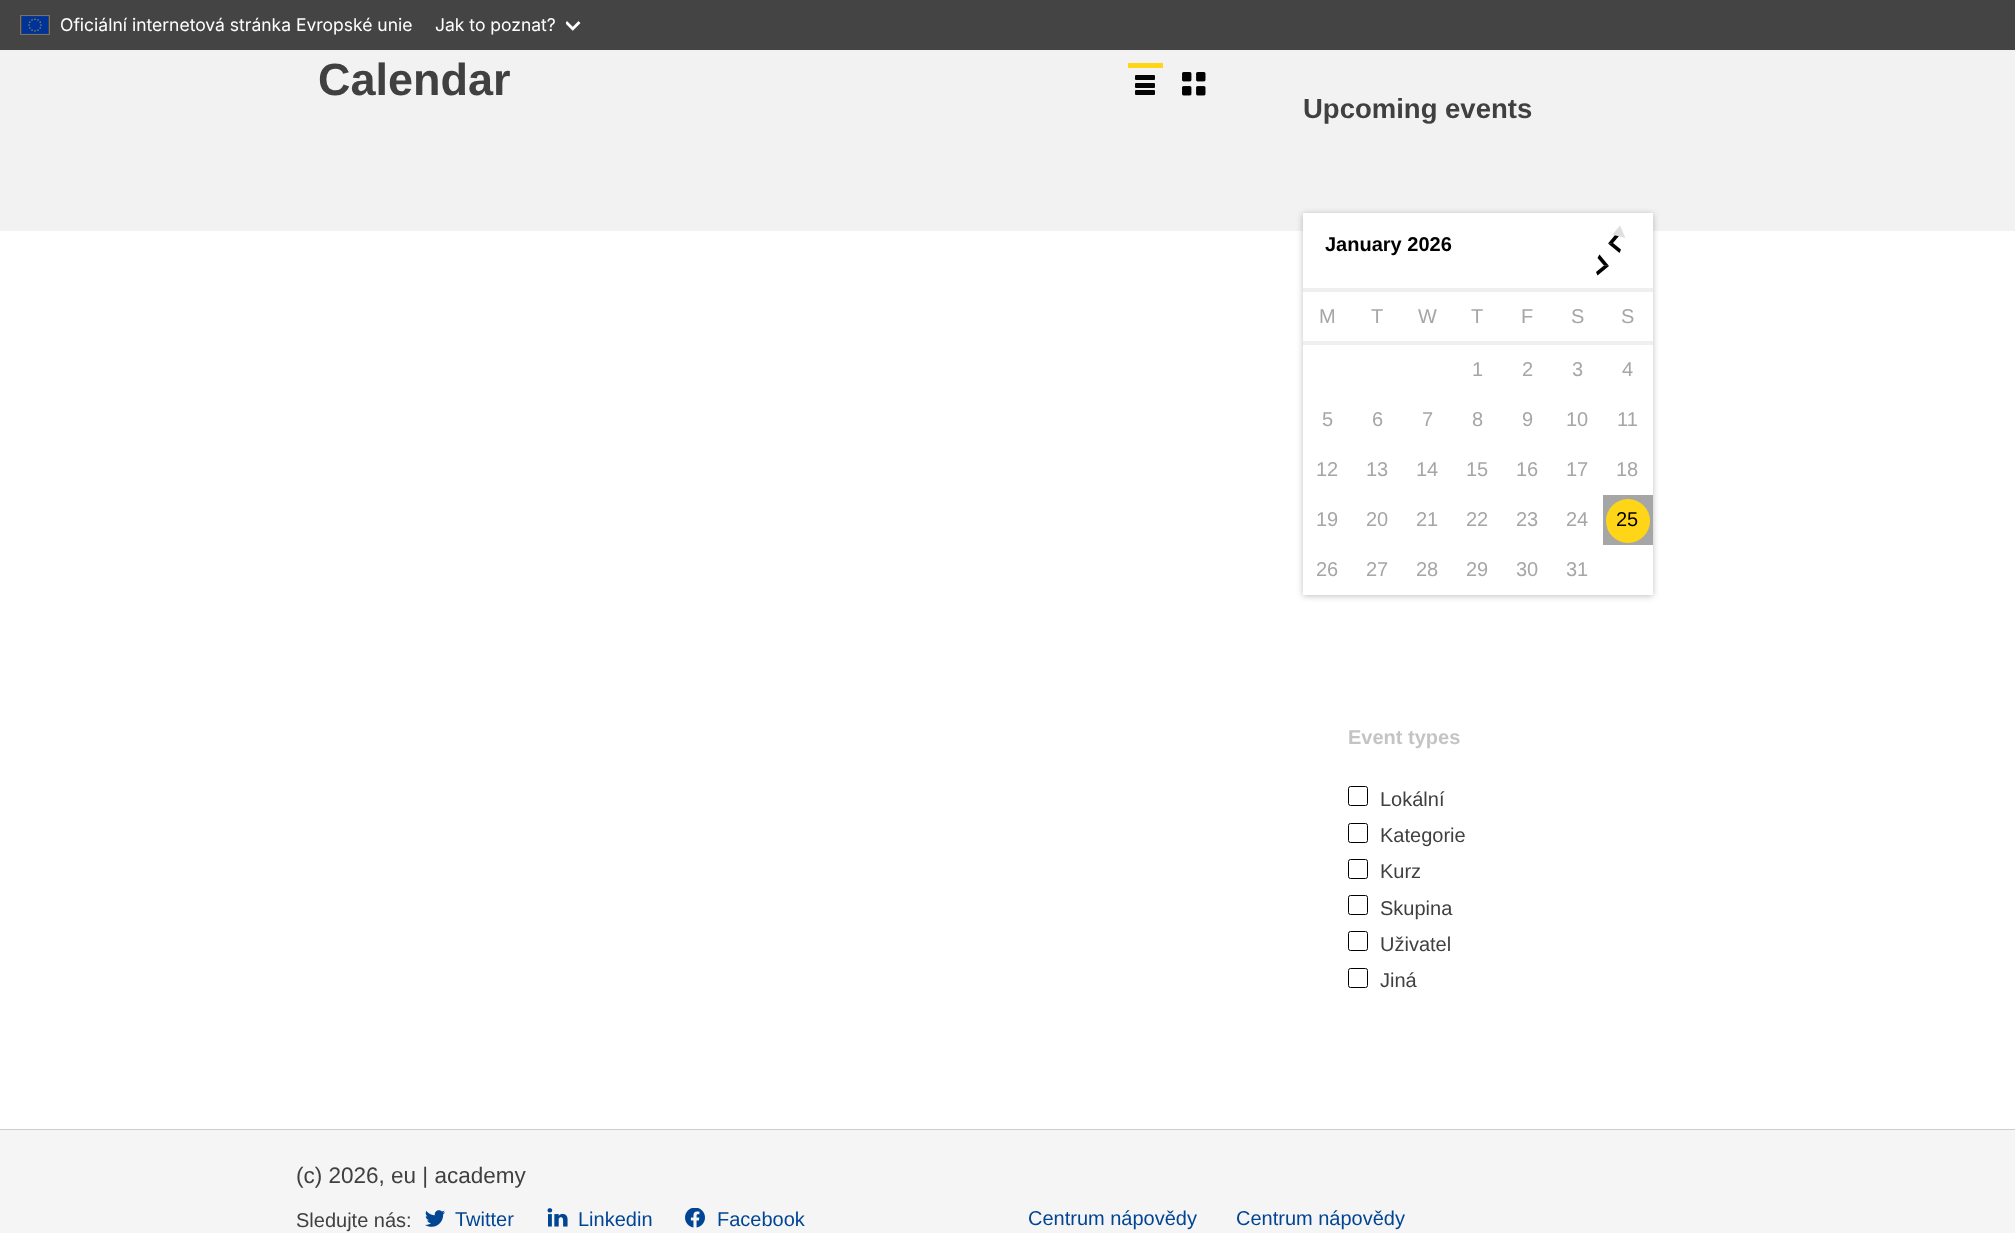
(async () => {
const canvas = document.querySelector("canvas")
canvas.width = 2015
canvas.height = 1233
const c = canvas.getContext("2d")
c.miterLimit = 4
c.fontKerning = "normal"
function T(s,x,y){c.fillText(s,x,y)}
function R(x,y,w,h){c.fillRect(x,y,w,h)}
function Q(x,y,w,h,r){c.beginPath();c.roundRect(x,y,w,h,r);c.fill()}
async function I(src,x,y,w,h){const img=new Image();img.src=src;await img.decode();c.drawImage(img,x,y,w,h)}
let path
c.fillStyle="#fff"
R(0,0,2015,1233)
c.fillStyle="#444"
R(0,0,2015,50)
c.strokeStyle="#737373"
c.strokeRect(20.5,15.5,29,19)
await I("1.png",22,16,26,18)
c.font="17.5px Inter"
c.fillStyle="#fff"
T("Oficiální internetová stránka Evropské unie",60,31)
T("Jak to poznat?",435,31)
await I("2.png",566,21,15,10)
c.fillStyle="#f2f2f2"
R(0,50,2015,181)
c.font="bold 45px Liberation Sans"
c.fillStyle="#404040"
T("Calendar",318,95)
c.fillStyle="#ffd617"
R(1128,63,35,5)
c.fillStyle="#050505"
Q(1135,75,20,5,1)
Q(1135,83,20,5,1)
Q(1135,90,20,5,1)
await I("3.png",1182,72,24,24)
c.font="bold 27.5px Liberation Sans"
c.fillStyle="#404040"
T("Upcoming events",1303,118)
c.fillStyle="#00000040"
c.filter="blur(3px)"
c.beginPath()
c.rect(1303,214,350,382)
c.fill()
c.filter="none"
c.fillStyle="#fff"
R(1303,213,350,382)
c.fillStyle="#000"
path = new Path2D("M1619.5 253l-11.5-9.5l5-.5l8 6.5z")
c.fill(path)
path = new Path2D("M1608 243.5l9.5-11.5l2 3.5l-6.5 7.5z")
c.fill(path)
c.font="20px Liberation Sans"
c.fillStyle="#dfdfdf"
c.save()
c.translate(1632,236)
c.rotate(-140 * Math.PI / 180)
c.fillText("◄",0,0)
c.restore()
c.font="bold 20px Liberation Sans"
c.fillStyle="#000"
T("January 2026",1325,251)
path = new Path2D("M1609 266l-11.5 9.5l-1.5-3.5l8-6.5z")
c.fill(path)
path = new Path2D("M1599.5 254.5l9.5 11.5l-5-.5l-6.5-7.5z")
c.fill(path)
c.fillStyle="#efefef"
R(1303,288,350,4)
R(1303,341,350,4)
c.font="20px Liberation Sans"
c.fillStyle="#a6a6a6"
T("M",1319,323)
T("T",1371,323)
T("W",1418,323)
T("T",1471,323)
T("F",1521,323)
T("S",1571,323)
T("S",1621,323)
T("1",1472,376)
T("2",1522,376)
T("3",1572,376)
T("4",1622,376)
T("5",1322,426)
T("6",1372,426)
T("7",1422,426)
T("8",1472,426)
T("9",1522,426)
T("10",1566,426)
T("11",1617,426)
T("12",1316,476)
T("13",1366,476)
T("14",1416,476)
T("15",1466,476)
T("16",1516,476)
T("17",1566,476)
T("18",1616,476)
T("19",1316,526)
T("20",1366,526)
T("21",1416,526)
T("22",1466,526)
T("23",1516,526)
T("24",1566,526)
R(1603,495,50,50)
c.fillStyle="#ffd617"
c.beginPath()
c.arc(1628,521,22,0,7)
c.fill()
c.fillStyle="#000"
T("25",1616,526)
c.fillStyle="#a6a6a6"
T("26",1316,576)
T("27",1366,576)
T("28",1416,576)
T("29",1466,576)
T("30",1516,576)
T("31",1566,576)
c.font="bold 20px Liberation Sans"
c.fillStyle="#c4c4c4"
T("Event types",1348,744)
c.beginPath()
c.roundRect(1348.5,786.5,19,19,2)
c.strokeStyle="#000"
c.stroke()
c.font="20px Liberation Sans"
c.fillStyle="#404040"
T("Lokální",1380,806)
c.beginPath()
c.roundRect(1348.5,823.5,19,19,2)
c.stroke()
T("Kategorie",1380,842)
c.beginPath()
c.roundRect(1348.5,859.5,19,19,2)
c.stroke()
T("Kurz",1380,878)
c.beginPath()
c.roundRect(1348.5,895.5,19,19,2)
c.stroke()
T("Skupina",1380,915)
c.beginPath()
c.roundRect(1348.5,931.5,19,19,2)
c.stroke()
T("Uživatel",1380,951)
c.beginPath()
c.roundRect(1348.5,968.5,19,19,2)
c.stroke()
T("Jiná",1380,987)
c.fillStyle="#f5f5f5"
R(0,1130,2015,103)
c.fillStyle="#cecdcd"
R(0,1129,2015,1)
c.font="22.5px Liberation Sans"
c.fillStyle="#404040"
T("(c) 2026, eu | academy",296,1183)
c.font="20px Liberation Sans"
T("Sledujte nás:",296,1227)
await I("4.png",425,1210,20,17)
c.fillStyle="#004494"
T("Twitter",455,1226)
await I("5.png",547,1208,21,19)
T("Linkedin",578,1226)
await I("6.png",685,1208,20,20)
T("Facebook",717,1226)
T("Centrum nápovědy",1028,1225)
T("Centrum nápovědy",1236,1225)
})()
